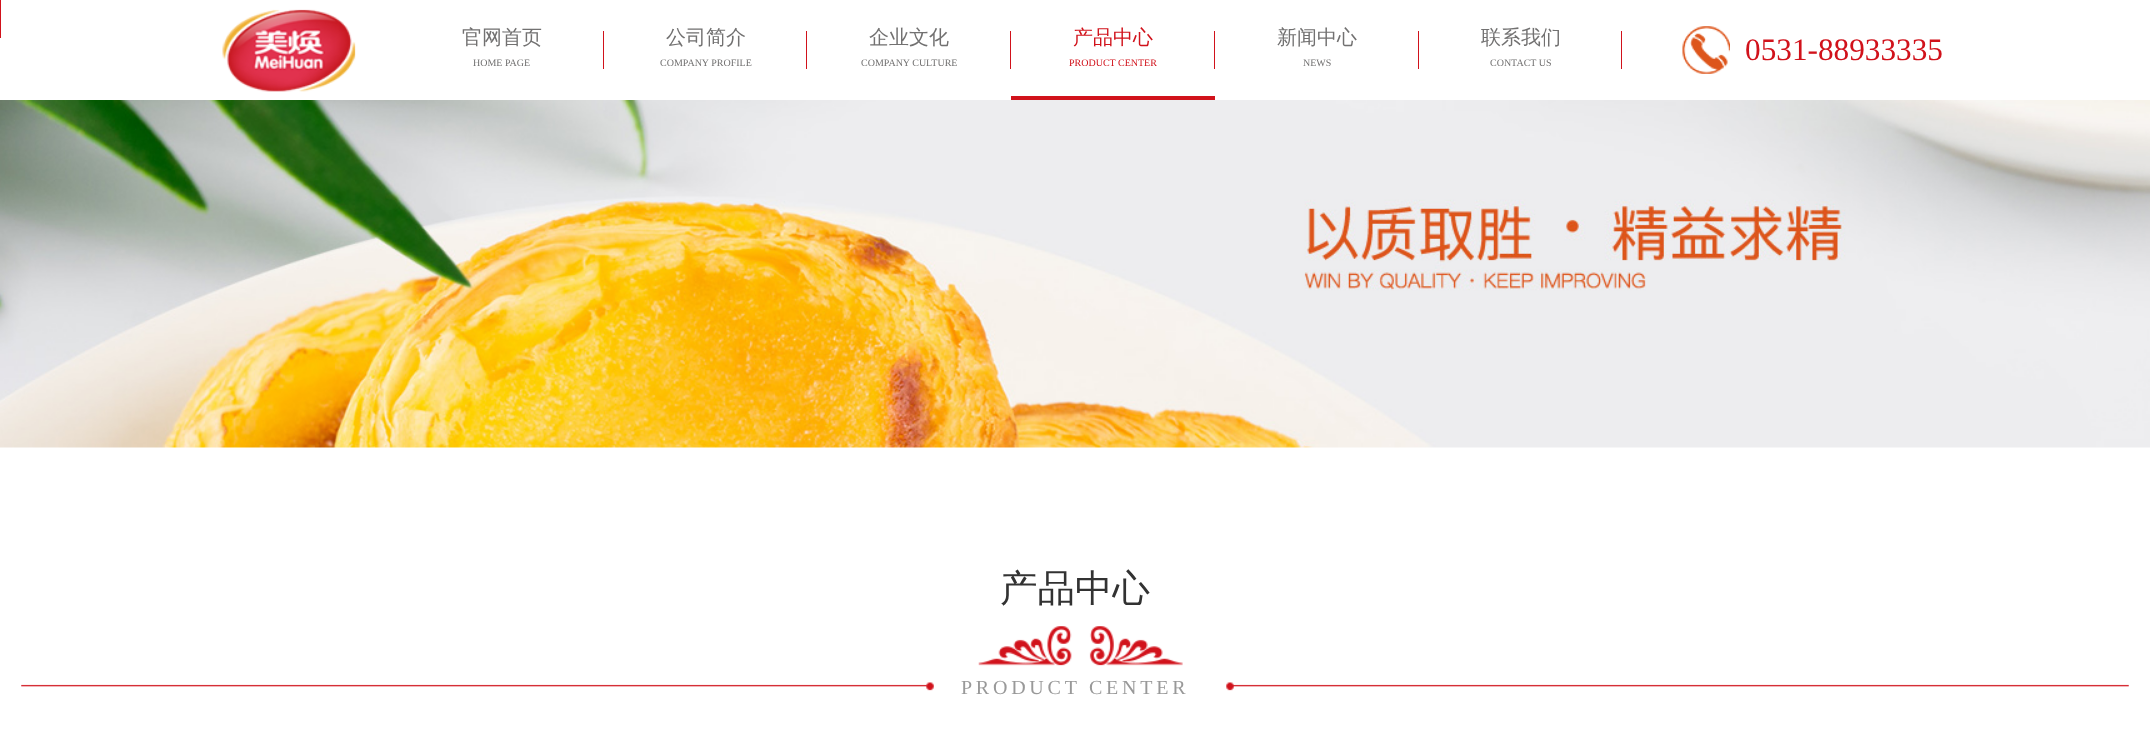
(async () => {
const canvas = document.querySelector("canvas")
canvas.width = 2150
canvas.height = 746
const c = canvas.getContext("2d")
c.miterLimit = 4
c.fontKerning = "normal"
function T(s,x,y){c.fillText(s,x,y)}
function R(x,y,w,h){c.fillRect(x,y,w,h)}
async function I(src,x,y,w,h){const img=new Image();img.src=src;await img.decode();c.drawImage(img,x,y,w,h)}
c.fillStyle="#fff"
R(0,0,2150,746)
await I("1.png",222,9,134,83)
c.fillStyle="#d1121b"
R(0,0,1,38)
c.font="500 20px WenQuanYi Zen Hei"
c.fillStyle="#727171"
T("官网首页",462,44)
c.font="10px Liberation Serif"
T("HOME PAGE",473,66)
c.fillStyle="#d1121b"
R(603,31,1,38)
c.font="500 20px WenQuanYi Zen Hei"
c.fillStyle="#727171"
T("公司简介",666,44)
c.font="10px Liberation Serif"
T("COMPANY PROFILE",660,66)
c.fillStyle="#d1121b"
R(806,31,1,38)
c.font="500 20px WenQuanYi Zen Hei"
c.fillStyle="#727171"
T("企业文化",869,44)
c.font="10px Liberation Serif"
T("COMPANY CULTURE",861,66)
c.fillStyle="#d1121b"
R(1010,31,1,38)
c.font="500 20px WenQuanYi Zen Hei"
T("产品中心",1073,44)
c.font="10px Liberation Serif"
T("PRODUCT CENTER",1069,66)
R(1214,31,1,38)
R(1011,96,204,4)
c.font="500 20px WenQuanYi Zen Hei"
c.fillStyle="#727171"
T("新闻中心",1277,44)
c.font="10px Liberation Serif"
T("NEWS",1303,66)
c.fillStyle="#d1121b"
R(1418,31,1,38)
c.font="500 20px WenQuanYi Zen Hei"
c.fillStyle="#727171"
T("联系我们",1481,44)
c.font="10px Liberation Serif"
T("CONTACT US",1490,66)
c.fillStyle="#d1121b"
R(1621,31,1,38)
await I("2.png",1682,26,48,48)
c.font="31.25px Liberation Serif"
T("0531-88933335",1745,60)
await I("3.png",0,100,2150,348)
await I("4.png",21,626,2108,65)
c.font="500 37.5px WenQuanYi Zen Hei"
c.fillStyle="#323232"
T("产品中心",1000,601)
c.letterSpacing="3.75px"
c.font="20px Liberation Serif"
c.fillStyle="#999"
T("PRODUCT CENTER",961,694)
})()
